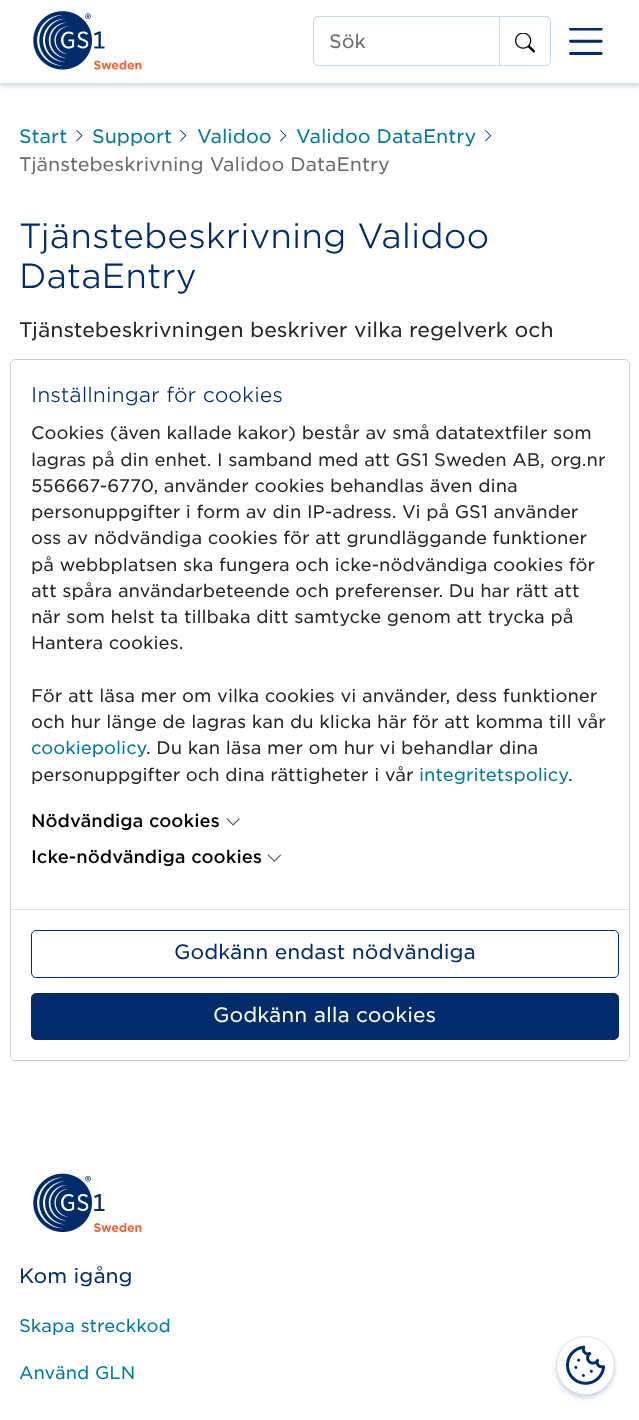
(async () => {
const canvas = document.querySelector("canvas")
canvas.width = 639
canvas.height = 1420
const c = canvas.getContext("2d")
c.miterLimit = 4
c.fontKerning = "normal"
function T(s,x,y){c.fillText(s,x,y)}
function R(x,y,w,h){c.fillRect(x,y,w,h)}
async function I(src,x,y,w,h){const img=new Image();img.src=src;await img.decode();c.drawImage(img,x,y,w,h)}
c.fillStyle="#fff"
R(0,0,639,1420)
c.save()
c.beginPath()
c.rect(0,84,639,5)
c.clip()
c.fillStyle="#002c6c33"
c.filter="blur(2px)"
c.beginPath()
c.rect(0,3,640,83)
c.fill()
c.filter="none"
c.restore()
await I("1.png",33,11,109,59)
c.beginPath()
c.roundRect(313.5,16.5,186,49,[4.5,0,0,4.5])
c.strokeStyle="#c4d7ed"
c.stroke()
c.font="18.75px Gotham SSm"
c.fillStyle="#696d73"
T("Sök",329,48)
c.beginPath()
c.roundRect(499.5,16.5,51,49,[0,4.5,4.5,0])
c.stroke()
await I("2.png",515,33,20,20)
await I("3.png",569,28,34,27)
c.fillStyle="#dee2e6"
R(0,83,639,1)
c.fillStyle="#00799e"
T("Start",19,143)
await I("4.png",76,130,7,12)
T("Support",92,143)
await I("5.png",180,130,7,12)
T("Validoo",197,143)
await I("5.png",280,130,7,12)
T("Validoo DataEntry",296,143)
await I("5.png",485,130,7,12)
c.fillStyle="#696d73"
T("Tjänstebeskrivning Validoo DataEntry",19,171)
c.font="300 33.5px Gotham SSm"
c.fillStyle="#002c6c"
T("Tjänstebeskrivning Validoo",19,248)
T("DataEntry",19,288)
c.font="20.2px Gotham SSm"
c.fillStyle="#262626"
T("Tjänstebeskrivningen beskriver vilka regelverk och",19,337)
c.beginPath()
c.roundRect(10.5,359.5,619,701,4.5)
c.strokeStyle="#00000033"
c.stroke()
c.font="300 20.2px Gotham SSm"
c.fillStyle="#002c6c"
T("Inställningar för cookies",31,402)
c.font="17.5px Gotham SSm"
c.fillStyle="#262626"
T("Cookies (även kallade kakor) består av små datatextfiler som",31,439)
T("lagras på din enhet. I samband med att GS1 Sweden AB, org.nr",31,466)
T("556667-6770, använder cookies behandlas även dina",31,492)
T("personuppgifter i form av din IP-adress. Vi på GS1 använder",31,518)
T("oss av nödvändiga cookies för att grundläggande funktioner",31,544)
T("på webbplatsen ska fungera och icke-nödvändiga cookies för",31,571)
T("att spåra användarbeteende och preferenser. Du har rätt att",31,597)
T("när som helst ta tillbaka ditt samtycke genom att trycka på",31,623)
T("Hantera cookies.",31,649)
T("För att läsa mer om vilka cookies vi använder, dess funktioner",31,702)
T("och hur länge de lagras kan du klicka här för att komma till vår",31,728)
c.fillStyle="#00799e"
T("cookiepolicy",31,754)
c.fillStyle="#262626"
T(". Du kan läsa mer om hur vi behandlar dina",146,754)
T("personuppgifter och dina rättigheter i vår",31,781)
c.fillStyle="#00799e"
T("integritetspolicy",419,781)
c.fillStyle="#262626"
T(".",568,781)
c.font="500 17.5px Gotham SSm"
c.fillStyle="#000"
T("Nödvändiga cookies",31,827)
await I("6.png",226,818,14,8)
T("Icke-nödvändiga cookies",31,863)
await I("7.png",267,854,14,8)
c.fillStyle="#fff"
c.beginPath()
c.roundRect(11,909,618,151,[0,0,4,4])
c.fill()
c.fillStyle="#dee2e6"
R(11,909,618,1)
c.beginPath()
c.roundRect(31.5,930.5,587,47,4.5)
c.strokeStyle="#002c6c"
c.stroke()
c.font="20px Gotham SSm"
c.fillStyle="#002c6c"
T("Godkänn endast nödvändiga",174,959)
c.beginPath()
c.roundRect(31.5,993.5,587,46,4.5)
c.fill()
c.stroke()
c.fillStyle="#fff"
T("Godkänn alla cookies",213,1022)
await I("8.png",33,1173,109,60)
c.fillStyle="#002c6c"
T("Kom igång",19,1283)
c.font="17.5px Gotham SSm"
c.fillStyle="#00799e"
T("Skapa streckkod",19,1332)
T("Använd GLN",19,1379)
c.fillStyle="#002c6c33"
c.filter="blur(2px)"
c.beginPath()
c.roundRect(556,1339,59,59,29.5)
c.fill()
c.filter="none"
c.fillStyle="#fff"
c.beginPath()
c.arc(585.5,1365.5,29,0,7)
c.fill()
c.strokeStyle="#dee2e6"
c.stroke()
await I("9.png",566,1345,40,40)
})()
